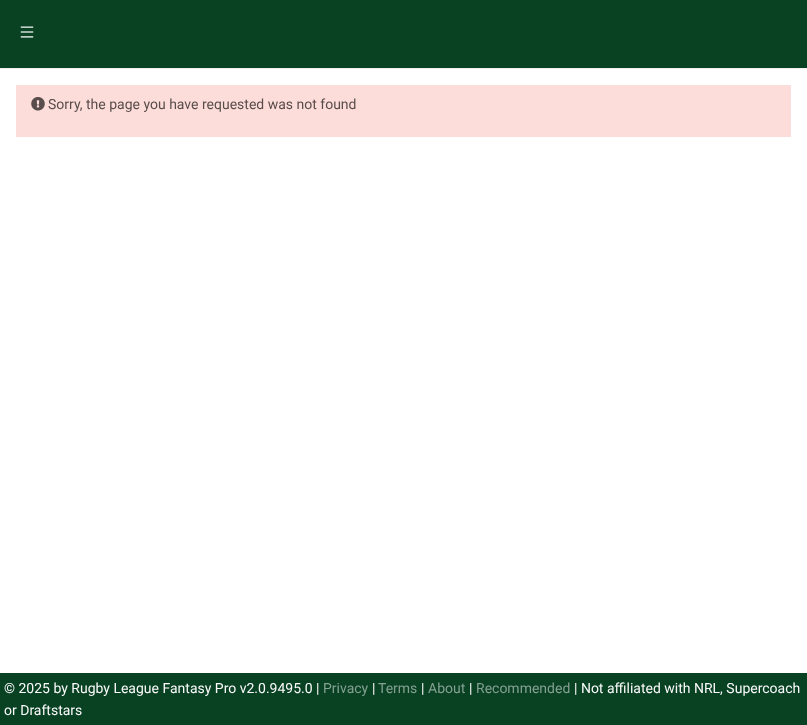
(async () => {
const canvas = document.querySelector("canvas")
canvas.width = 807
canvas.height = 725
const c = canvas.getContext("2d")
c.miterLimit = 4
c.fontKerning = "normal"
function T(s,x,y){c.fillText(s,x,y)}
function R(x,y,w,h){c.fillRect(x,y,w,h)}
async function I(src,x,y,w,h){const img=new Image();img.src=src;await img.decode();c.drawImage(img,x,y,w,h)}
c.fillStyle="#fff"
R(0,0,807,725)
c.fillStyle="#094123"
R(0,0,807,68)
c.fillStyle="#f0f0f0"
R(0,68,807,1)
await I("1.png",20,26,14,12)
c.fillStyle="#fdddd9"
R(16,85,775,52)
await I("2.png",31,97,14,14)
c.font="14px Roboto"
c.fillStyle="#594d4c"
T("Sorry, the page you have requested was not found",48,109)
c.fillStyle="#094123"
R(0,673,807,52)
c.fillStyle="#fafafa"
T("© 2025 by Rugby League Fantasy Pro v2.0.9495.0 |",4,693)
c.fillStyle="#84a091"
T("Privacy",323,693)
c.fillStyle="#fafafa"
T("|",372,693)
c.fillStyle="#84a091"
T("Terms",378,693)
c.fillStyle="#fafafa"
T("|",421,693)
c.fillStyle="#84a091"
T("About",428,693)
c.fillStyle="#fafafa"
T("|",469,693)
c.fillStyle="#84a091"
T("Recommended",476,693)
c.fillStyle="#fafafa"
T("| Not affiliated with NRL, Supercoach",574,693)
T("or Draftstars",4,715)
})()
